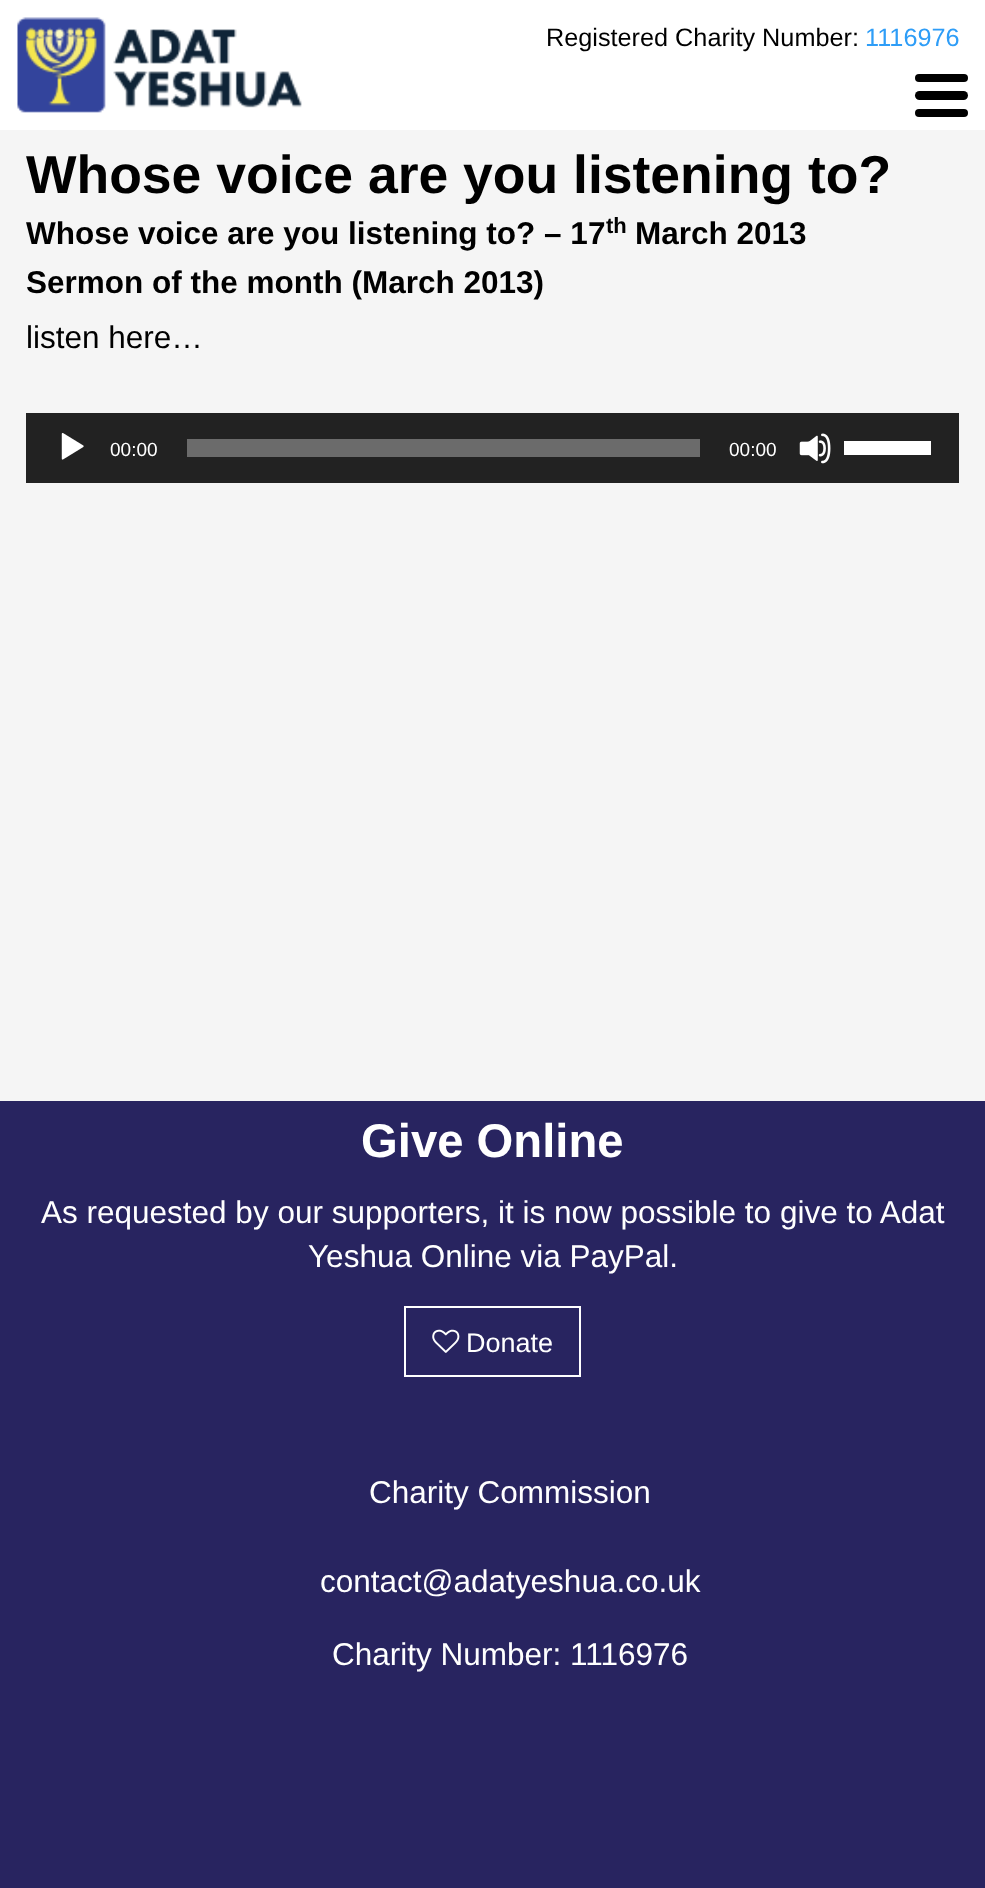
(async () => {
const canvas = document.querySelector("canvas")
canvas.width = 985
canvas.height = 1888
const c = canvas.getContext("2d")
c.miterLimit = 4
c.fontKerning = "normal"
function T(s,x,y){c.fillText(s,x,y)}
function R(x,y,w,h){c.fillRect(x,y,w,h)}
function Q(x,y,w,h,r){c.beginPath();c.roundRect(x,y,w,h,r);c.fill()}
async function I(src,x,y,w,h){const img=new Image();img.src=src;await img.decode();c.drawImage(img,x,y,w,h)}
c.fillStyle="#f5f5f5"
R(0,0,985,1888)
c.fillStyle="#fff"
R(0,0,985,130)
await I("1.png",17,17,285,96)
c.font="25.25px Liberation Sans"
c.fillStyle="#000"
T("Registered Charity Number:",546,46)
c.fillStyle="#2e9df7"
T("1116976",865,46)
c.fillStyle="#000"
Q(915,91,53,9,4.5)
Q(915,74,53,8,4)
Q(915,109,53,8,4)
c.font="bold 53.5px Liberation Sans"
T("Whose voice are you listening to?",26,193)
c.font="bold 31.5px Liberation Sans"
T("Whose voice are you listening to? – 17",26,244)
c.font="bold 22px Liberation Sans"
T("th",606,233)
c.font="bold 31.5px Liberation Sans"
T("March 2013",635,244)
T("Sermon of the month (March 2013)",26,293)
c.font="31.5px Liberation Sans"
T("listen here…",26,348)
c.fillStyle="#222"
R(26,413,933,70)
await I("2.png",61,432,23,28)
c.font="19px Liberation Sans"
c.fillStyle="#fff"
T("00:00",110,456)
c.fillStyle="#6b6b6b"
R(187,439,513,18)
c.fillStyle="#fff"
T("00:00",729,456)
await I("3.png",799,433,32,31)
R(844,441,87,14)
c.fillStyle="#282460"
R(0,1101,985,787)
c.font="bold 47.25px Liberation Sans"
c.fillStyle="#fff"
T("Give Online",361,1157)
c.font="31.5px Liberation Sans"
T("As requested by our supporters, it is now possible to give to Adat",41,1223)
T("Yeshua Online via PayPal.",308,1267)
c.strokeStyle="#fff"
c.lineWidth=2
c.strokeRect(405,1307,175,69)
await I("4.png",432,1329,28,24)
c.font="27px Liberation Sans"
T("Donate",466,1352)
c.font="31.5px Liberation Sans"
T("Charity Commission",369,1503)
T("contact@adatyeshua.co.uk",320,1592)
T("Charity Number: 1116976",332,1665)
})()
